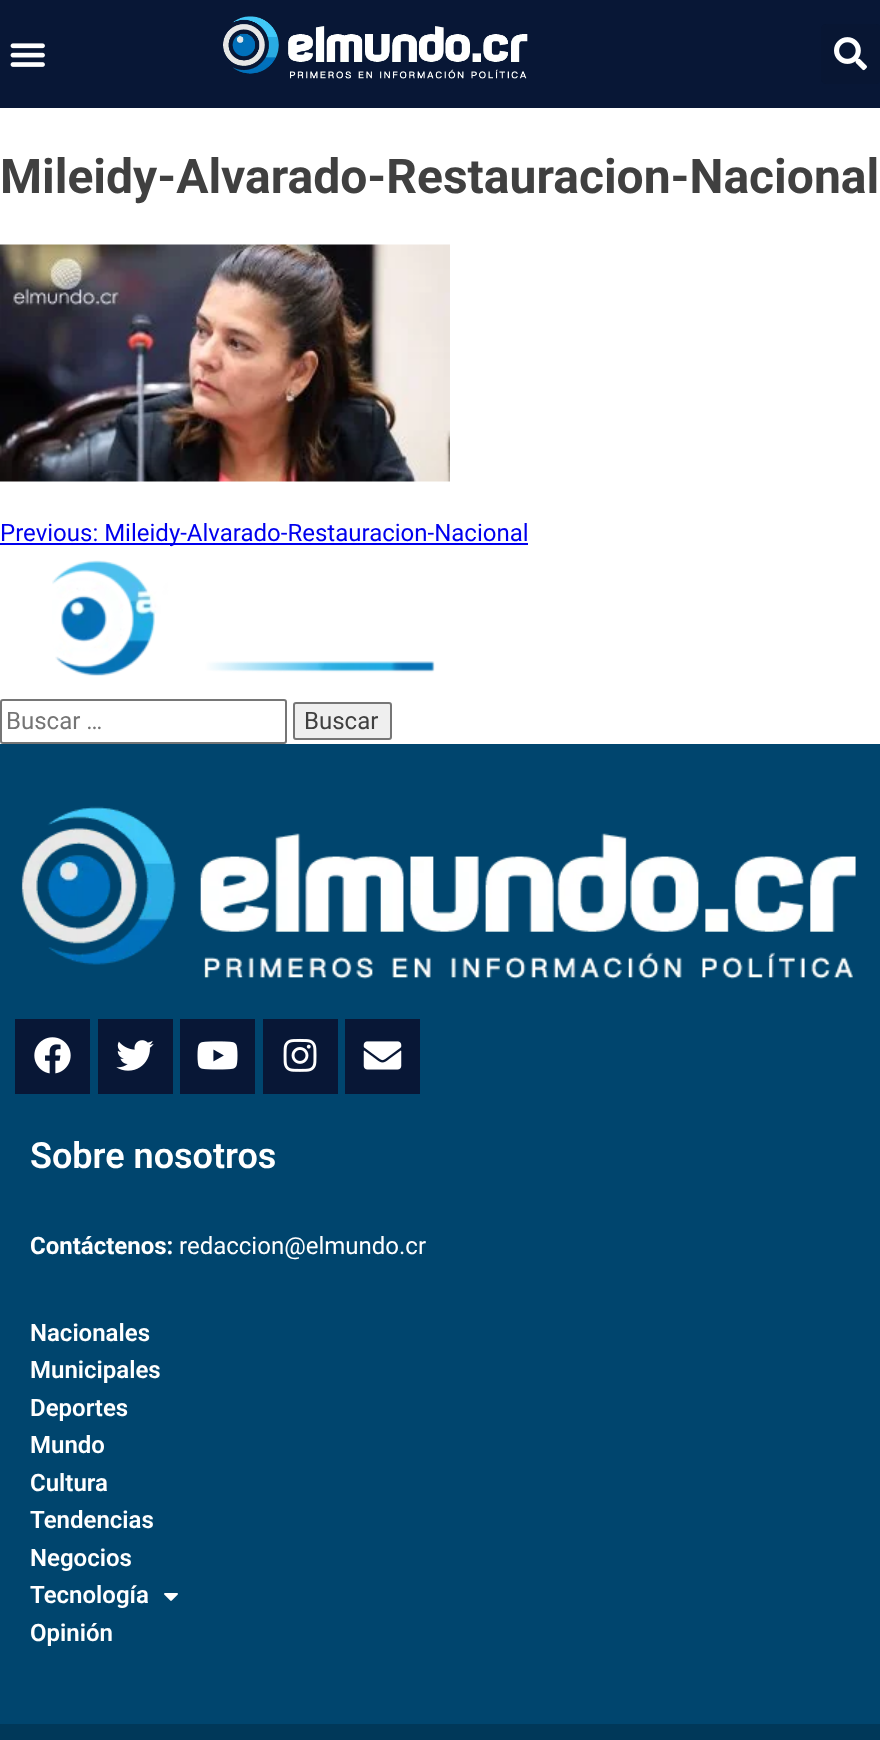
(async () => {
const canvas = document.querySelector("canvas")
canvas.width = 880
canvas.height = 1740
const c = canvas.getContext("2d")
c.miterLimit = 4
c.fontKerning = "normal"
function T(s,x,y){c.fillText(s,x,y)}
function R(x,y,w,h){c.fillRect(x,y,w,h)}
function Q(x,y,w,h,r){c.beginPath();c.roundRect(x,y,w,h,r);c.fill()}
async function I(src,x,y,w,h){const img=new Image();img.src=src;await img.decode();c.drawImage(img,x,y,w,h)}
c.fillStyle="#fff"
R(0,0,880,1740)
c.fillStyle="#081736"
R(0,0,880,108)
await I("1.png",10,43,35,24)
await I("2.png",223,16,305,63)
c.fillStyle="#081633"
Q(821,24,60,60,5)
await I("3.png",834,37,33,34)
c.font="bold 48px Roboto"
c.fillStyle="#404040"
T("Mileidy-Alvarado-Restauracion-Nacional",0,193)
await I("4.png",0,244,450,238)
c.fillStyle="#00e"
R(0,543,528,2)
c.font="24px Roboto"
T("Previous: Mileidy-Alvarado-Restauracion-Nacional",0,541)
await I("5.png",52,560,383,116)
c.beginPath()
c.roundRect(1,700,285,43,2)
c.strokeStyle="#767676"
c.lineWidth=2
c.stroke()
c.fillStyle="#757575"
T("Buscar …",6,729)
c.fillStyle="#efefef"
c.beginPath()
c.roundRect(294,703,97,36,2)
c.fill()
c.stroke()
c.fillStyle="#404040"
T("Buscar",304,729)
c.fillStyle="#00456e"
R(0,744,880,980)
await I("6.png",21,806,835,173)
c.fillStyle="#081736"
R(15,1019,75,75)
await I("7.png",34,1037,37,37)
R(98,1019,75,75)
await I("8.png",116,1040,38,31)
R(180,1019,75,75)
await I("9.png",197,1041,41,29)
R(263,1019,75,75)
await I("10.png",283,1038,34,34)
R(345,1019,75,75)
await I("11.png",363,1041,39,29)
c.font="600 36px Roboto"
c.fillStyle="#fff"
T("Sobre nosotros",30,1168)
c.font="bold 24px Roboto"
T("Contáctenos:",30,1254)
c.font="24px Roboto"
T("redaccion@elmundo.cr",179,1254)
c.font="600 24px Roboto"
T("Nacionales",30,1341)
T("Municipales",30,1378)
T("Deportes",30,1416)
T("Mundo",30,1453)
T("Cultura",30,1491)
T("Tendencias",30,1528)
T("Negocios",30,1566)
T("Tecnología",30,1603)
await I("12.png",164,1593,14,8)
T("Opinión",30,1641)
c.fillStyle="#003859"
R(0,1724,880,16)
})()
